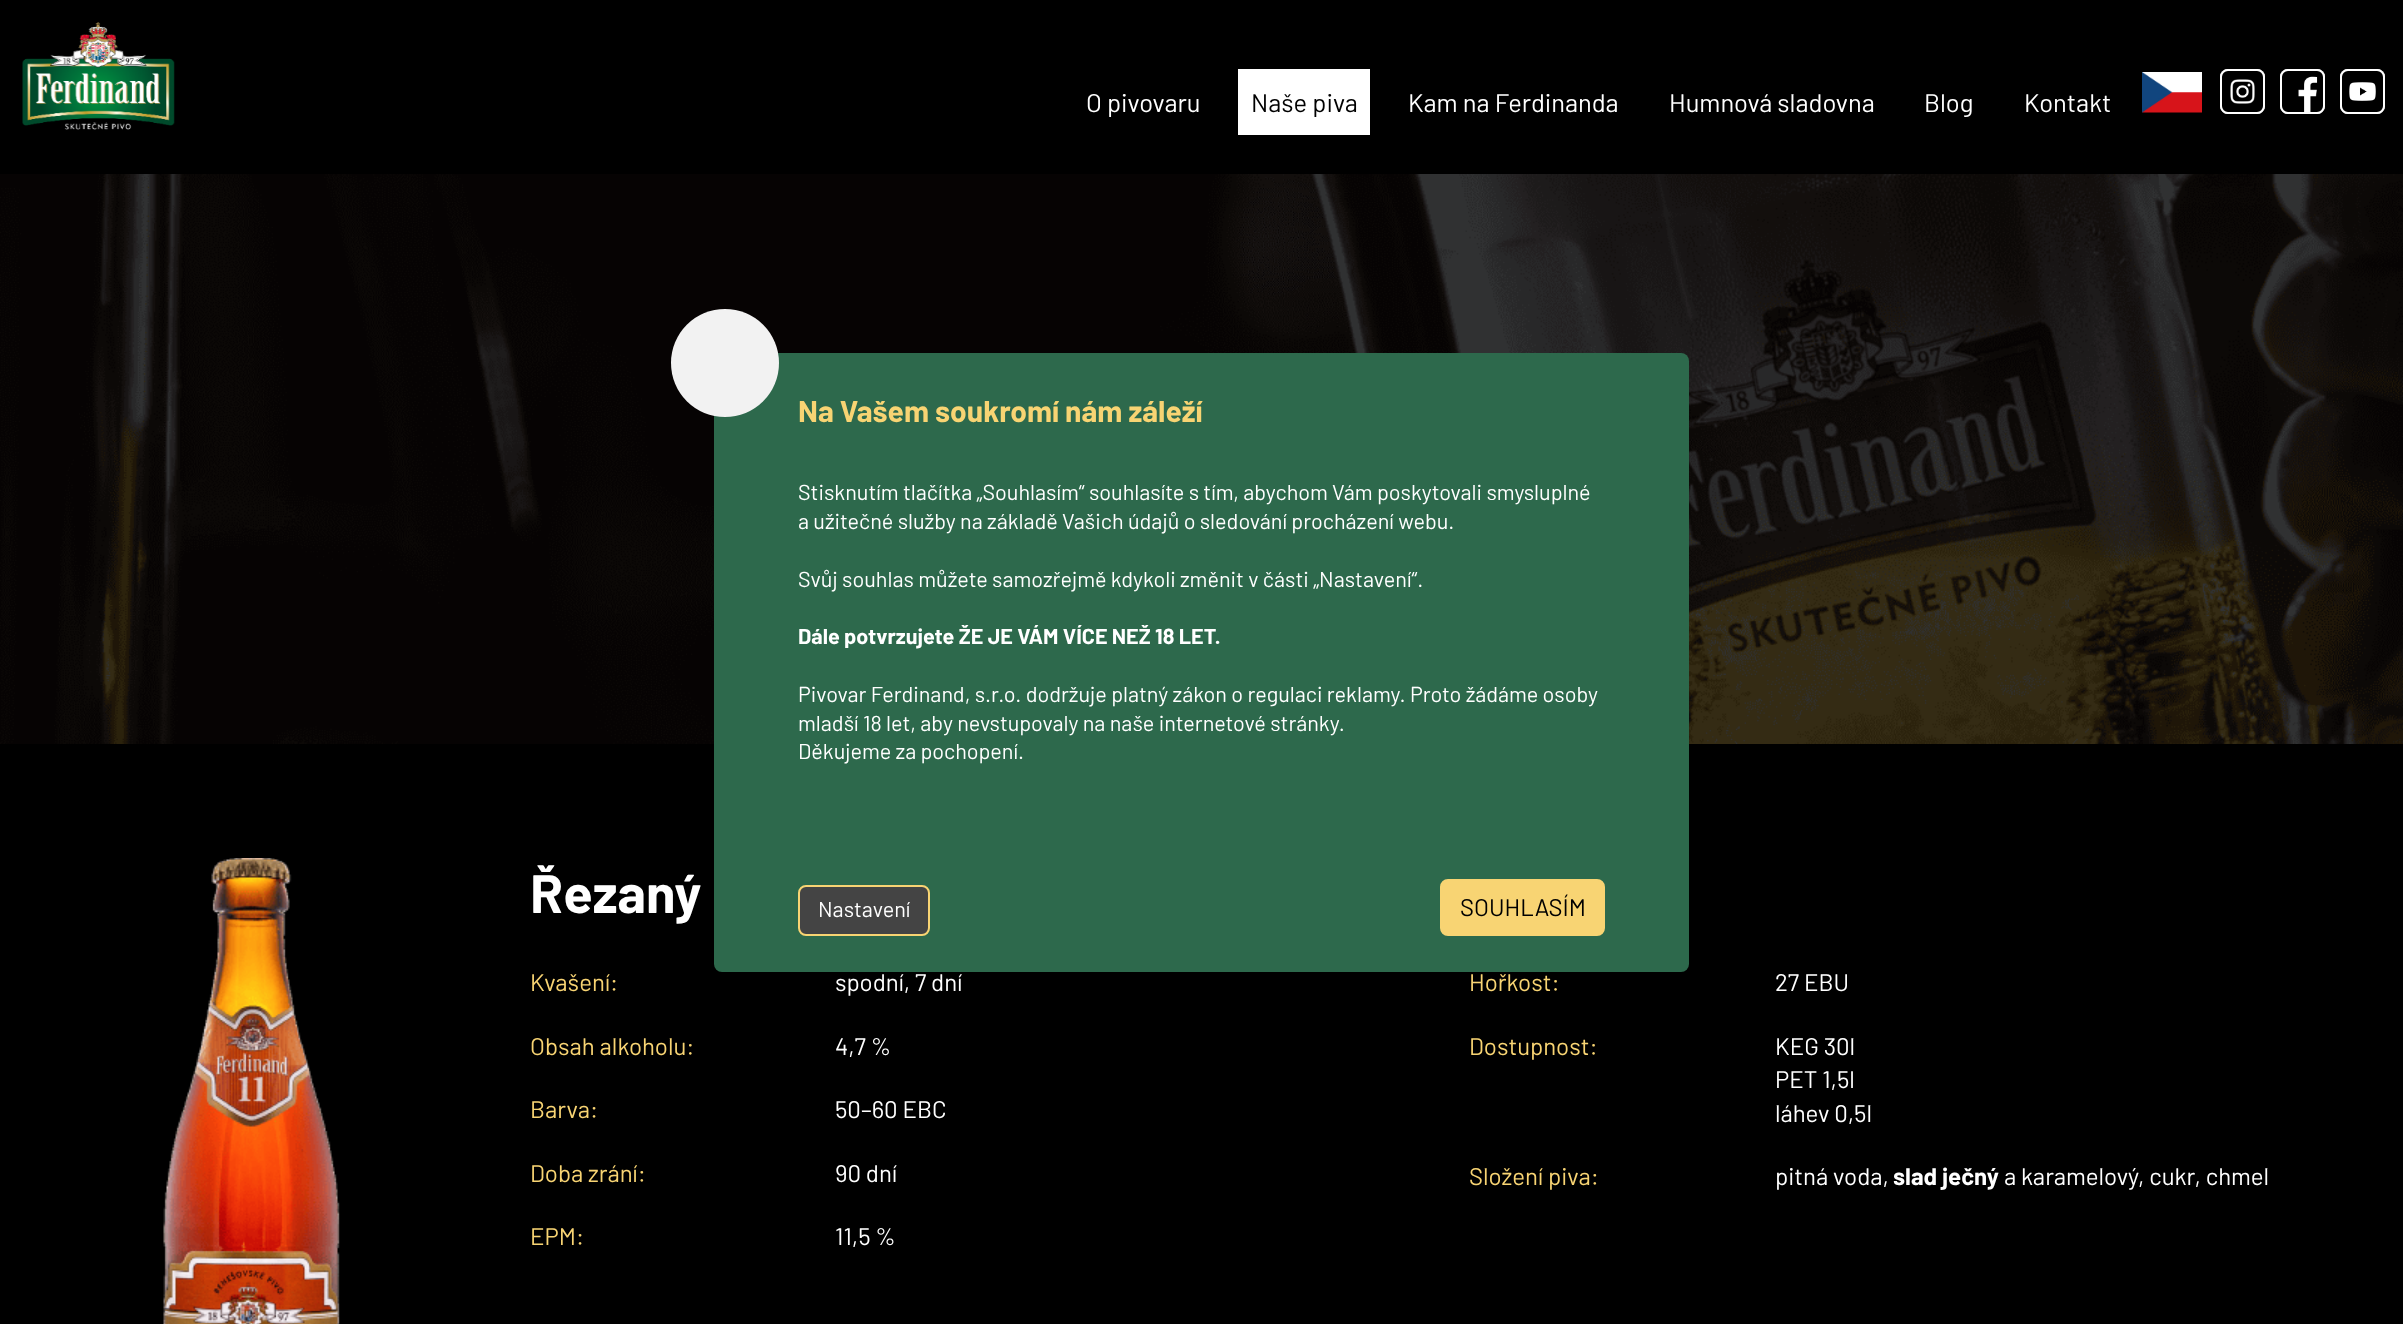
(async () => {
const canvas = document.querySelector("canvas")
canvas.width = 2403
canvas.height = 1324
const c = canvas.getContext("2d")
c.miterLimit = 4
c.fontKerning = "normal"
function T(s,x,y){c.fillText(s,x,y)}
function R(x,y,w,h){c.fillRect(x,y,w,h)}
function Q(x,y,w,h,r){c.beginPath();c.roundRect(x,y,w,h,r);c.fill()}
async function I(src,x,y,w,h){const img=new Image();img.src=src;await img.decode();c.drawImage(img,x,y,w,h)}
c.fillStyle="#000"
R(0,0,2403,1324)
await I("1.png",22,22,153,108)
c.font="25.5px Barlow"
c.fillStyle="#fff"
T("O pivovaru",1086,112)
R(1238,69,132,66)
c.fillStyle="#000"
T("Naše piva",1251,112)
c.fillStyle="#fff"
T("Kam na Ferdinanda",1408,112)
T("Humnová sladovna",1669,112)
T("Blog",1924,112)
T("Kontakt",2024,112)
await I("2.png",2142,72,60,41)
Q(2220,69,45,45,8)
await I("3.png",2221,70,43,43)
c.beginPath()
c.roundRect(2221,70,43,43,7)
c.strokeStyle="#fff"
c.lineWidth=2
c.stroke()
Q(2280,69,45,45,8)
await I("4.png",2281,70,43,43)
c.beginPath()
c.roundRect(2281,70,43,43,7)
c.stroke()
Q(2340,69,45,45,8)
await I("5.png",2341,70,43,43)
c.beginPath()
c.roundRect(2341,70,43,43,7)
c.stroke()
await I("6.png",0,174,2403,570)
await I("7.png",163,858,177,466)
c.font="bold 54px Barlow"
T("Řezaný",530,913)
c.font="24px Barlow"
c.fillStyle="#f8d473"
T("Kvašení:",530,991)
c.fillStyle="#fff"
T("spodní, 7 dní",835,991)
c.fillStyle="#f8d473"
T("Hořkost:",1469,991)
c.fillStyle="#fff"
T("27 EBU",1775,991)
c.fillStyle="#f8d473"
T("Obsah alkoholu:",530,1055)
c.fillStyle="#fff"
T("4,7 %",835,1055)
c.fillStyle="#f8d473"
T("Dostupnost:",1469,1055)
c.fillStyle="#fff"
T("KEG 30l",1775,1055)
T("PET 1,5l",1775,1088)
T("láhev 0,5l",1775,1122)
c.fillStyle="#f8d473"
T("Barva:",530,1118)
c.fillStyle="#fff"
T("50–60 EBC",835,1118)
c.fillStyle="#f8d473"
T("Doba zrání:",530,1182)
c.fillStyle="#fff"
T("90 dní",835,1182)
c.fillStyle="#f8d473"
T("Složení piva:",1469,1185)
c.fillStyle="#fff"
T("pitná voda,",1775,1185)
c.font="bold 24px Barlow"
T("slad ječný",1893,1185)
c.font="24px Barlow"
T("a karamelový, cukr, chmel",2004,1185)
c.fillStyle="#f8d473"
T("EPM:",530,1245)
c.fillStyle="#fff"
T("11,5 %",835,1245)
c.fillStyle="#2d694c"
Q(714,353,975,619,8)
c.fillStyle="#f2f2f2"
c.beginPath()
c.arc(725,363,54,0,7)
c.fill()
c.font="bold 30px Barlow"
c.fillStyle="#f8d473"
T("Na Vašem soukromí nám záleží",798,422)
c.font="21.6px Barlow"
c.fillStyle="#fff"
T("Stisknutím tlačítka „Souhlasím“ souhlasíte s tím, abychom Vám poskytovali smysluplné",798,500)
T("a užitečné služby na základě Vašich údajů o sledování procházení webu.",798,529)
T("Svůj souhlas můžete samozřejmě kdykoli změnit v části „Nastavení“.",798,587)
c.font="bold 21.6px Barlow"
T("Dále potvrzujete ŽE JE VÁM VÍCE NEŽ 18 LET.",798,644)
c.font="21.6px Barlow"
T("Pivovar Ferdinand, s.r.o. dodržuje platný zákon o regulaci reklamy. Proto žádáme osoby",798,702)
T("mladší 18 let, aby nevstupovaly na naše internetové stránky.",798,731)
T("Děkujeme za pochopení.",798,759)
c.fillStyle="#444"
c.beginPath()
c.roundRect(799,886,130,49,7)
c.fill()
c.strokeStyle="#f8d473"
c.stroke()
c.fillStyle="#fff"
T("Nastavení",818,917)
c.fillStyle="#f8d473"
c.beginPath()
c.roundRect(1441,880,163,55,7)
c.fill()
c.stroke()
c.font="24px Barlow"
c.fillStyle="#000"
T("SOUHLASÍM",1460,916)
})()
